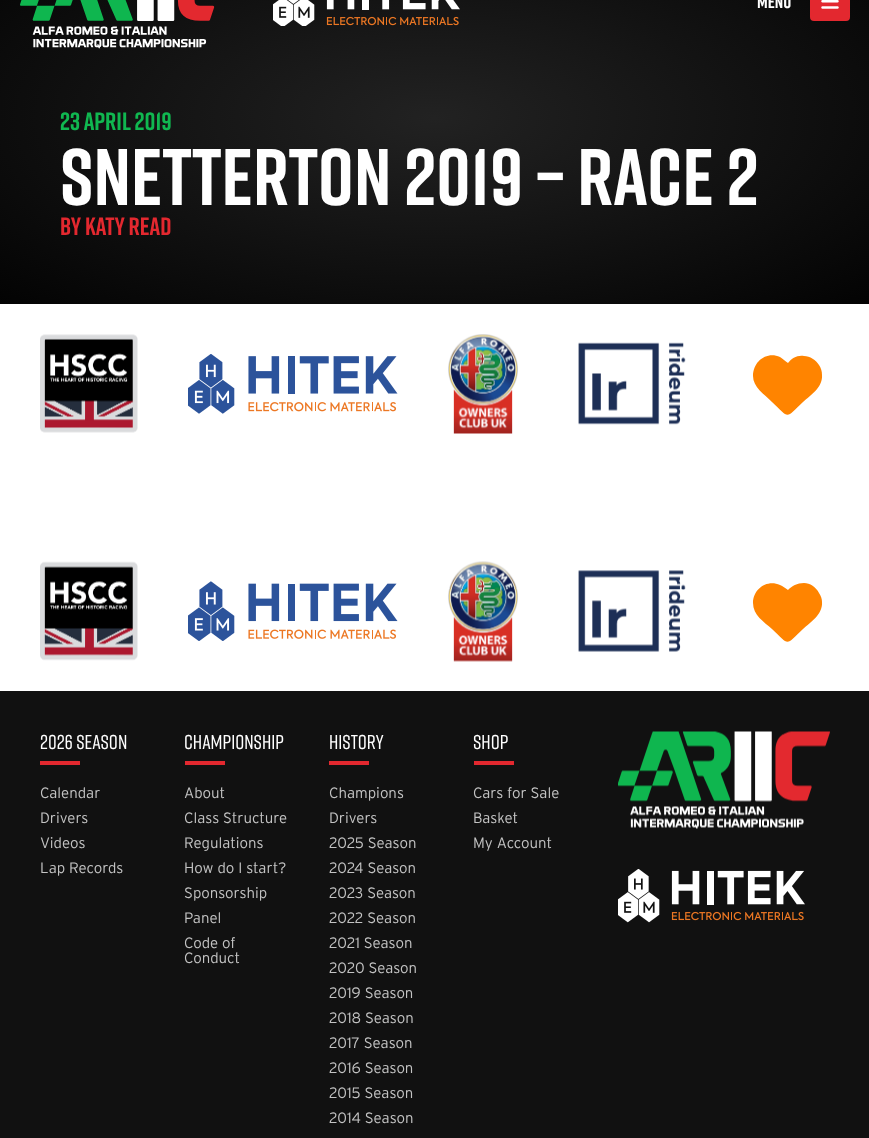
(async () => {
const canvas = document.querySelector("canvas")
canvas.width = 869
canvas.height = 1138
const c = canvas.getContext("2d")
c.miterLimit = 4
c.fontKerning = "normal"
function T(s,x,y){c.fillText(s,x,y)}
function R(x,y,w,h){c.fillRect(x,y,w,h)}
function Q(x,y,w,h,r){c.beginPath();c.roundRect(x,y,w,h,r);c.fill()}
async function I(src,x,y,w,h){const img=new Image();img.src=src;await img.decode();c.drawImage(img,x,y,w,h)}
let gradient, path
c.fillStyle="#fff"
R(0,0,869,1138)
gradient = c.createRadialGradient(435,275.93,0,435,275.93,615)
gradient.addColorStop(0,"#222")
gradient.addColorStop(1,"#030303")
c.fillStyle = gradient
c.beginPath()
c.rect(0,0,869,304)
c.save()
c.clip()
c.scale(1,263 / 615)
c.fillRect(0,0,869,2662)
c.restore()
await I("1.png",20,0,195,49)
await I("2.png",273,0,187,26)
c.font="bold 18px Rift"
c.fillStyle="#fff"
T("MENU",757,8)
c.fillStyle="#e3282f"
Q(810,-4,40,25,4)
await I("3.png",821,0,18,9)
c.font="bold 25px Rift"
c.fillStyle="#10b750"
T("23 APRIL 2019",60,130)
c.font="bold 80px Rift"
c.fillStyle="#fff"
T("SNETTERTON 2019 – RACE 2",60,205)
c.font="bold 25px Rift"
c.fillStyle="#e3282f"
T("BY KATY READ",60,235)
await I("4.png",40,334,98,99)
await I("5.png",188,354,210,60)
await I("6.png",448,334,70,100)
await I("7.png",578,342,108,83)
c.fillStyle="#ff8400"
path = new Path2D("M753 376c0-15 14-25 27-19c3 2 5 4 8 6c4-5 9-8 16-7c6 0 12 4 15 9c2 3 3 6 3 10c1 12-11 20-19 27c-18 17-13 17-31 0c-8-8-19-15-19-26z")
c.fill(path)
await I("8.png",40,561,98,100)
await I("9.png",188,581,210,60)
await I("10.png",448,561,70,101)
await I("11.png",578,570,108,82)
path = new Path2D("M753 603c0-14 14-24 27-18c3 1 5 3 8 5c4-4 9-7 16-7c6 0 12 4 15 10c2 3 3 6 3 9c1 12-11 20-19 27c-18 17-13 17-31 0c-8-7-19-14-19-26z")
c.fill(path)
c.fillStyle="#111"
R(0,691,869,447)
c.font="500 20px Rift"
c.fillStyle="#fff"
T("2026 SEASON",40,749)
c.fillStyle="#e3282f"
R(40,761,40,4)
c.font="300 15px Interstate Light"
c.fillStyle="#c3c3c3"
T("Calendar",40,798)
T("Drivers",40,823)
T("Videos",40,848)
T("Lap Records",40,873)
c.font="500 20px Rift"
c.fillStyle="#fff"
T("CHAMPIONSHIP",184,749)
c.fillStyle="#e3282f"
R(185,761,40,4)
c.font="300 15px Interstate Light"
c.fillStyle="#c3c3c3"
T("About",184,798)
T("Class Structure",184,823)
T("Regulations",184,848)
T("How do I start?",184,873)
T("Sponsorship",184,898)
T("Panel",184,923)
T("Code of",184,948)
T("Conduct",184,963)
c.font="500 20px Rift"
c.fillStyle="#fff"
T("HISTORY",329,749)
c.fillStyle="#e3282f"
R(329,761,40,4)
c.font="300 15px Interstate Light"
c.fillStyle="#c3c3c3"
T("Champions",329,798)
T("Drivers",329,823)
T("2025 Season",329,848)
T("2024 Season",329,873)
T("2023 Season",329,898)
T("2022 Season",329,923)
T("2021 Season",329,948)
T("2020 Season",329,973)
T("2019 Season",329,998)
T("2018 Season",329,1023)
T("2017 Season",329,1048)
T("2016 Season",329,1073)
T("2015 Season",329,1098)
T("2014 Season",329,1123)
c.font="500 20px Rift"
c.fillStyle="#fff"
T("SHOP",473,749)
c.fillStyle="#e3282f"
R(474,761,40,4)
c.font="300 15px Interstate Light"
c.fillStyle="#c3c3c3"
T("Cars for Sale",473,798)
T("Basket",473,823)
T("My Account",473,848)
await I("12.png",618,731,212,98)
await I("13.png",618,869,187,54)
})()
